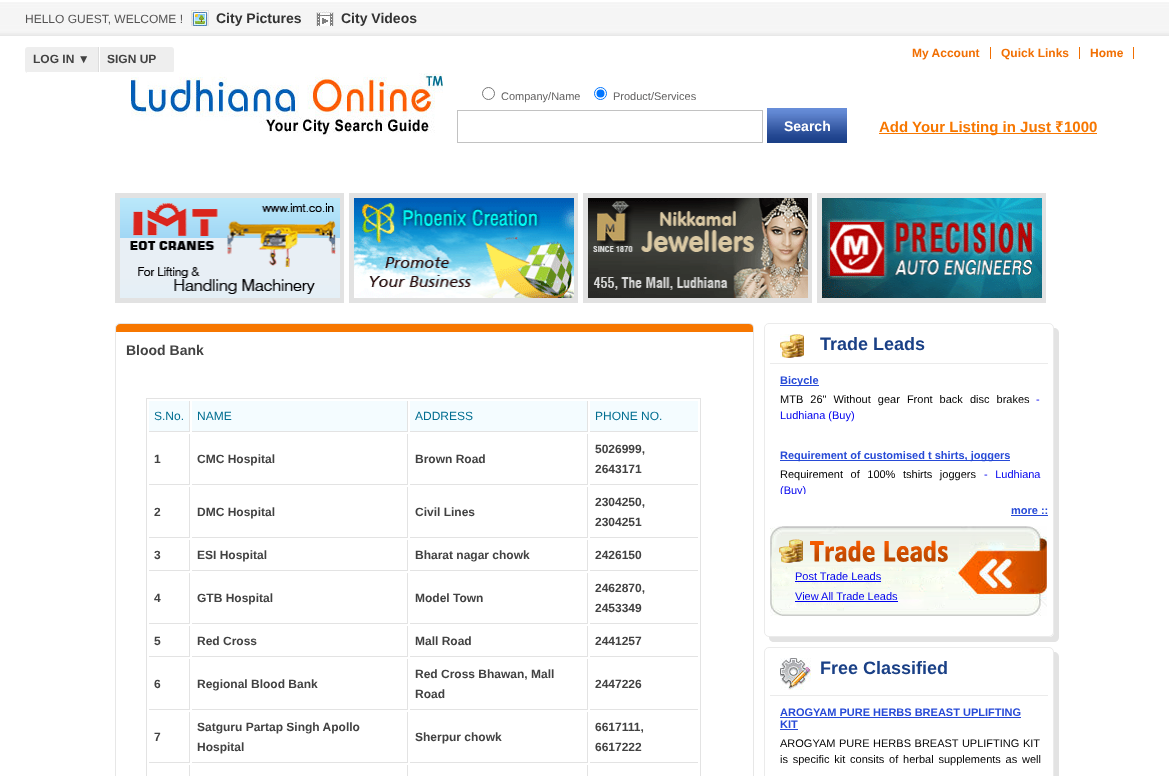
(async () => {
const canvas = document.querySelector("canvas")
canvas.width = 1169
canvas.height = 776
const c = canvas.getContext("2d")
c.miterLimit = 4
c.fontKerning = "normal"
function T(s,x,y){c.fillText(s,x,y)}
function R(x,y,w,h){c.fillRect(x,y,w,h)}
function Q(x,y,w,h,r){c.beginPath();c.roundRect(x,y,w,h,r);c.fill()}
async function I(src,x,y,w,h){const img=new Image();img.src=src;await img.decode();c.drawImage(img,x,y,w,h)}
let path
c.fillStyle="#fff"
R(0,0,1169,776)
await I("1.png",0,2,1169,34)
c.font="12px Liberation Sans"
c.fillStyle="#545353"
T("HELLO GUEST, WELCOME !",25,23)
await I("2.png",191,10,18,16)
c.font="bold 14px Liberation Sans"
c.fillStyle="#333"
T("City Pictures",216,23)
await I("3.png",316,10,18,16)
T("City Videos",341,23)
c.fillStyle="#eee"
Q(25,47,149,26,3)
c.fillStyle="#fff"
R(27,72,146,1)
R(99,47,1,25)
c.fillStyle="#ddd"
R(98,47,1,25)
c.font="bold 12px Liberation Sans"
c.fillStyle="#424242"
T("LOG IN ▼",33,63)
T("SIGN UP",107,63)
c.fillStyle="#f16f03"
R(990,47,1,12)
T("My Account",912,57)
R(1079,47,1,12)
T("Quick Links",1001,57)
R(1133,47,1,12)
T("Home",1090,57)
await I("4.png",131,73,312,64)
c.beginPath()
c.arc(488.5,93.5,6,0,7)
c.strokeStyle="#767676"
c.stroke()
c.font="11px Liberation Sans"
c.fillStyle="#636262"
T("Company/Name",501,100)
c.beginPath()
c.arc(600.5,93.5,6,0,7)
c.strokeStyle="#0075ff"
c.stroke()
c.fillStyle="#0075ff"
c.beginPath()
c.arc(600.5,93.5,4,0,7)
c.fill()
c.fillStyle="#636262"
T("Product/Services",613,100)
c.strokeStyle="#c2c2c2"
c.strokeRect(457.5,110.5,305,32)
await I("5.png",767,108,80,35)
c.font="bold 14px Liberation Sans"
c.fillStyle="#fff"
T("Search",784,131)
c.fillStyle="#f77700"
R(879,133,218,1)
c.font="bold 15px Liberation Sans"
T("Add Your Listing in Just",879,132)
c.font="bold 15px Noto Sans"
T("₹",1055,132)
c.font="bold 15px Liberation Sans"
T("1000",1064,132)
c.strokeStyle="#e2e2e2"
c.lineWidth=5
c.strokeRect(117.5,195.5,224,105)
await I("6.png",120,198,220,100)
c.strokeRect(351.5,195.5,224,105)
await I("7.png",354,198,220,100)
c.strokeRect(585.5,195.5,224,105)
await I("8.png",588,198,220,100)
c.strokeRect(819.5,195.5,224,105)
await I("9.png",822,198,220,100)
await I("10.png",115,323,639,9)
c.fillStyle="#e7e7e7"
R(753,332,1,444)
R(115,332,1,444)
c.font="bold 14px Liberation Sans"
c.fillStyle="#424242"
T("Blood Bank",126,355)
c.strokeStyle="#e3e3e3"
c.lineWidth=1
c.strokeRect(146.5,398.5,554,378)
c.fillStyle="#f4fcff"
R(149,401,40,30)
c.fillStyle="#e3e3e3"
R(189,401,1,31)
R(149,431,41,1)
c.font="12px Liberation Sans"
c.fillStyle="#016e91"
T("S.No.",154,420)
c.fillStyle="#f4fcff"
R(192,401,215,30)
c.fillStyle="#e3e3e3"
R(407,401,1,31)
R(192,431,216,1)
c.fillStyle="#016e91"
T("NAME",197,420)
c.fillStyle="#f4fcff"
R(410,401,177,30)
c.fillStyle="#e3e3e3"
R(587,401,1,31)
R(410,431,178,1)
c.fillStyle="#016e91"
T("ADDRESS",415,420)
c.fillStyle="#f4fcff"
R(590,401,108,30)
c.fillStyle="#e3e3e3"
R(590,431,108,1)
c.fillStyle="#016e91"
T("PHONE NO.",595,420)
c.fillStyle="#e3e3e3"
R(189,434,1,51)
R(149,484,41,1)
c.font="bold 12px Liberation Sans"
c.fillStyle="#424242"
T("1",154,463)
c.fillStyle="#e3e3e3"
R(407,434,1,51)
R(192,484,216,1)
c.fillStyle="#424242"
T("CMC Hospital",197,463)
c.fillStyle="#e3e3e3"
R(587,434,1,51)
R(410,484,178,1)
c.fillStyle="#424242"
T("Brown Road",415,463)
c.fillStyle="#e3e3e3"
R(590,484,108,1)
c.fillStyle="#424242"
T("5026999,",595,453)
T("2643171",595,473)
c.fillStyle="#e3e3e3"
R(189,487,1,51)
R(149,537,41,1)
c.fillStyle="#424242"
T("2",154,516)
c.fillStyle="#e3e3e3"
R(407,487,1,51)
R(192,537,216,1)
c.fillStyle="#424242"
T("DMC Hospital",197,516)
c.fillStyle="#e3e3e3"
R(587,487,1,51)
R(410,537,178,1)
c.fillStyle="#424242"
T("Civil Lines",415,516)
c.fillStyle="#e3e3e3"
R(590,537,108,1)
c.fillStyle="#424242"
T("2304250,",595,506)
T("2304251",595,526)
c.fillStyle="#e3e3e3"
R(189,540,1,31)
R(149,570,41,1)
c.fillStyle="#424242"
T("3",154,559)
c.fillStyle="#e3e3e3"
R(407,540,1,31)
R(192,570,216,1)
c.fillStyle="#424242"
T("ESI Hospital",197,559)
c.fillStyle="#e3e3e3"
R(587,540,1,31)
R(410,570,178,1)
c.fillStyle="#424242"
T("Bharat nagar chowk",415,559)
c.fillStyle="#e3e3e3"
R(590,570,108,1)
c.fillStyle="#424242"
T("2426150",595,559)
c.fillStyle="#e3e3e3"
R(189,573,1,51)
R(149,623,41,1)
c.fillStyle="#424242"
T("4",154,602)
c.fillStyle="#e3e3e3"
R(407,573,1,51)
R(192,623,216,1)
c.fillStyle="#424242"
T("GTB Hospital",197,602)
c.fillStyle="#e3e3e3"
R(587,573,1,51)
R(410,623,178,1)
c.fillStyle="#424242"
T("Model Town",415,602)
c.fillStyle="#e3e3e3"
R(590,623,108,1)
c.fillStyle="#424242"
T("2462870,",595,592)
T("2453349",595,612)
c.fillStyle="#e3e3e3"
R(189,626,1,31)
R(149,656,41,1)
c.fillStyle="#424242"
T("5",154,645)
c.fillStyle="#e3e3e3"
R(407,626,1,31)
R(192,656,216,1)
c.fillStyle="#424242"
T("Red Cross",197,645)
c.fillStyle="#e3e3e3"
R(587,626,1,31)
R(410,656,178,1)
c.fillStyle="#424242"
T("Mall Road",415,645)
c.fillStyle="#e3e3e3"
R(590,656,108,1)
c.fillStyle="#424242"
T("2441257",595,645)
c.fillStyle="#e3e3e3"
R(189,659,1,51)
R(149,709,41,1)
c.fillStyle="#424242"
T("6",154,688)
c.fillStyle="#e3e3e3"
R(407,659,1,51)
R(192,709,216,1)
c.fillStyle="#424242"
T("Regional Blood Bank",197,688)
c.fillStyle="#e3e3e3"
R(587,659,1,51)
R(410,709,178,1)
c.fillStyle="#424242"
T("Red Cross Bhawan, Mall",415,678)
T("Road",415,698)
c.fillStyle="#e3e3e3"
R(590,709,108,1)
c.fillStyle="#424242"
T("2447226",595,688)
c.fillStyle="#e3e3e3"
R(189,712,1,51)
R(149,762,41,1)
c.fillStyle="#424242"
T("7",154,741)
c.fillStyle="#e3e3e3"
R(407,712,1,51)
R(192,762,216,1)
c.fillStyle="#424242"
T("Satguru Partap Singh Apollo",197,731)
T("Hospital",197,751)
c.fillStyle="#e3e3e3"
R(587,712,1,51)
R(410,762,178,1)
c.fillStyle="#424242"
T("Sherpur chowk",415,741)
c.fillStyle="#e3e3e3"
R(590,762,108,1)
c.fillStyle="#424242"
T("6617111,",595,731)
T("6617222",595,751)
c.fillStyle="#e3e3e3"
R(189,765,1,11)
R(407,765,1,11)
R(587,765,1,11)
path = new Path2D("M769 637c0 3 2 5 5 5h280c3 0 5-2 5-5v-304c0-3-2-5-5-5v304c0 3-2 5-5 5z")
c.fill(path)
c.beginPath()
c.roundRect(764.5,323.5,289,313,4.5)
c.strokeStyle="#ebebeb"
c.stroke()
c.fillStyle="#ebebeb"
R(770,363,278,1)
await I("11.png",780,334,24,24)
c.font="bold 18px Liberation Sans"
c.fillStyle="#1a4086"
T("Trade Leads",820,350)
c.fillStyle="#274ad7"
R(780,385,39,1)
c.font="bold 11px Liberation Sans"
T("Bicycle",780,384)
c.wordSpacing="4px"
c.font="11px Liberation Sans"
c.fillStyle="#000"
T("MTB 26\" Without gear Front back disc brakes",780,403)
c.wordSpacing="0px"
c.fillStyle="#00e"
T("-",1036,403)
T("Ludhiana (Buy)",780,419)
c.fillStyle="#274ad7"
R(780,460,230,1)
c.font="bold 11px Liberation Sans"
T("Requirement of customised t shirts, joggers",780,459)
c.wordSpacing="4.5px"
c.font="11px Liberation Sans"
c.fillStyle="#000"
T("Requirement of 100% tshirts joggers",780,478)
c.fillStyle="#00e"
T("- Ludhiana",984,478)
c.save()
c.beginPath()
c.rect(770,364,278,130)
c.clip()
c.wordSpacing="0px"
T("(Buy)",780,494)
c.restore()
c.wordSpacing="0px"
c.font="bold 11px Liberation Sans"
c.fillStyle="#274ad7"
T("more ::",1011,514)
R(1011,515,37,1)
await I("12.png",770,526,277,90)
c.font="11px Liberation Sans"
c.fillStyle="#00e"
T("Post Trade Leads",795,580)
R(795,581,86,1)
T("View All Trade Leads",795,600)
R(795,601,103,1)
c.fillStyle="#e3e3e3"
path = new Path2D("M769 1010c0 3 2 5 5 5h280c3 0 5-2 5-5v-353c0-3-2-5-5-5v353c0 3-2 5-5 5z")
c.fill(path)
c.beginPath()
c.roundRect(764.5,647.5,289,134,4.5)
c.stroke()
c.fillStyle="#ebebeb"
R(770,695,278,1)
await I("13.png",780,658,31,32)
c.font="bold 18px Liberation Sans"
c.fillStyle="#1a4086"
T("Free Classified",820,674)
c.font="bold 11px Liberation Sans"
c.fillStyle="#274ad7"
T("AROGYAM PURE HERBS BREAST UPLIFTING",780,716)
R(780,717,241,1)
T("KIT",780,728)
R(780,729,18,1)
c.wordSpacing="0.5px"
c.font="11px Liberation Sans"
c.fillStyle="#000"
T("AROGYAM PURE HERBS BREAST UPLIFTING KIT",780,747)
c.wordSpacing="1.75px"
T("is specific kit consits of herbal supplements as well",780,763)
})()
